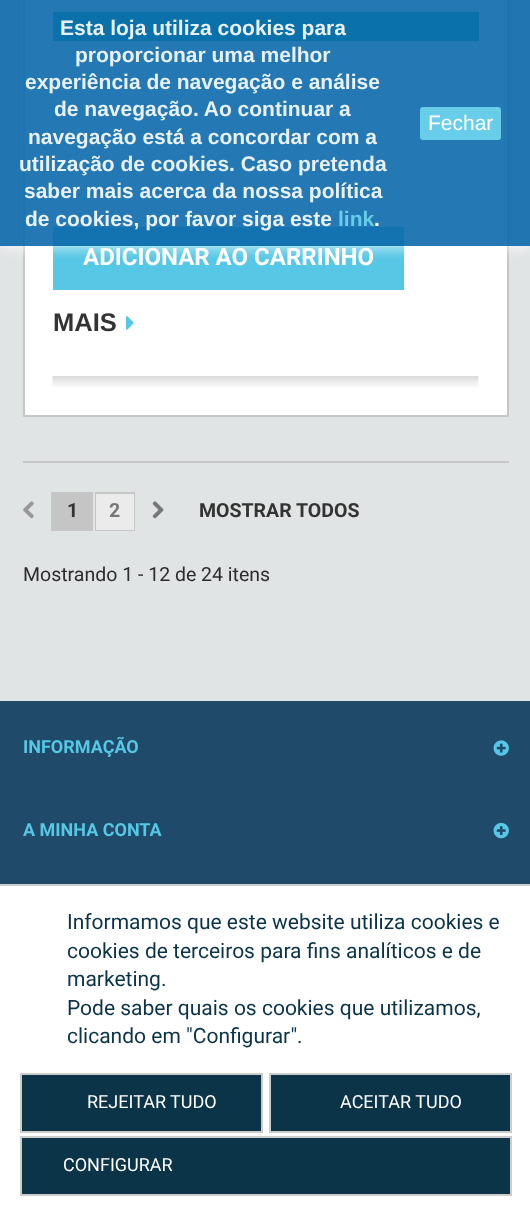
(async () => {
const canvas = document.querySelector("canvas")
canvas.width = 530
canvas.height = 1215
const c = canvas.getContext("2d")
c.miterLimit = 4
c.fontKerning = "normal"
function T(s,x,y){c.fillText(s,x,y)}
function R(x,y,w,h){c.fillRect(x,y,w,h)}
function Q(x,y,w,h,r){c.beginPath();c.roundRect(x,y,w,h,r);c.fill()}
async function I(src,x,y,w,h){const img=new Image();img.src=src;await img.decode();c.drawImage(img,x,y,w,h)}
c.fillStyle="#e1e4e5"
R(0,0,530,1215)
c.fillStyle="#fff"
c.beginPath()
c.rect(24,-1,484,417)
c.fill()
c.strokeStyle="#c6c6c6"
c.lineWidth=2
c.stroke()
c.fillStyle="#08b9a6"
R(53,12,426,29)
c.fillStyle="#56c7e5"
R(53,227,351,63)
c.save()
c.beginPath()
c.rect(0,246,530,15)
c.clip()
c.fillStyle="#ffffffe6"
c.filter="blur(7.5px)"
c.beginPath()
c.rect(0,0,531,246)
c.fill()
c.filter="none"
c.restore()
c.fillStyle="#0c69abe6"
R(0,0,530,246)
c.font="bold 21px Liberation Sans"
c.fillStyle="#e7f1f7"
T("Esta loja utiliza cookies para",60,35)
T("proporcionar uma melhor",75,62)
T("experiência de navegação e análise",25,89)
T("de navegação. Ao continuar a",54,116)
T("navegação está a concordar com a",28,144)
T("utilização de cookies. Caso pretenda",19,171)
T("saber mais acerca da nossa política",24,198)
T("de cookies, por favor siga este",25,226)
c.fillStyle="#67cde8"
T("link",338,226)
c.fillStyle="#fff"
T(".",374,226)
c.fillStyle="#67cde8"
Q(420,107,81,33,3)
c.font="21px Liberation Sans"
c.fillStyle="#fff"
T("Fechar",428,130)
c.font="bold 24px Roboto"
T("ADICIONAR AO CARRINHO",83,265)
c.font="bold 25.5px Liberation Sans"
c.fillStyle="#333"
T("MAIS",53,331)
await I("1.png",126,316,8,14)
await I("2.png",52,376,427,11)
c.fillStyle="#c6c6c6"
R(23,461,486,2)
await I("3.png",23,501,11,18)
c.strokeRect(52,493,40,37)
c.fillStyle="#c5c5c5"
R(53,494,38,35)
c.font="bold 19.5px Roboto"
c.fillStyle="#333"
T("1",67,517)
c.strokeRect(96,493,38,37)
c.fillStyle="#ebebeb"
R(96,494,38,36)
c.fillStyle="#777"
T("2",109,517)
await I("4.png",152,501,12,18)
c.fillStyle="#333"
T("MOSTRAR TODOS",199,517)
c.font="19.5px Roboto"
c.fillStyle="#2c2c2c"
T("Mostrando 1 - 12 de 24 itens",23,581)
c.fillStyle="#063658"
R(0,701,530,183)
await I("5.png",0,701,530,183)
c.font="bold 18px Roboto"
c.fillStyle="#56c7e5"
T("INFORMAÇÃO",23,753)
await I("6.png",493,740,16,16)
T("A MINHA CONTA",23,836)
await I("7.png",493,822,16,17)
c.fillStyle="#fff"
R(0,886,530,329)
c.fillStyle="#ccc"
R(0,884,530,2)
c.font="21px Roboto"
c.fillStyle="#0b3449"
T("Informamos que este website utiliza cookies e",67,929)
T("cookies de terceiros para fins analíticos e de",67,958)
T("marketing.",67,986)
T("Pode saber quais os cookies que utilizamos,",67,1015)
T("clicando em \"Configurar\".",67,1043)
c.beginPath()
c.rect(21,1074,241,58)
c.fill()
c.strokeStyle="#ccc"
c.stroke()
c.font="18px Roboto"
c.fillStyle="#fff"
T("REJEITAR TUDO",87,1108)
c.fillStyle="#0b3449"
c.beginPath()
c.rect(270,1074,241,58)
c.fill()
c.stroke()
c.fillStyle="#fff"
T("ACEITAR TUDO",340,1108)
c.fillStyle="#0b3449"
c.beginPath()
c.rect(21,1137,490,58)
c.fill()
c.stroke()
c.fillStyle="#fff"
T("CONFIGURAR",63,1171)
})()
